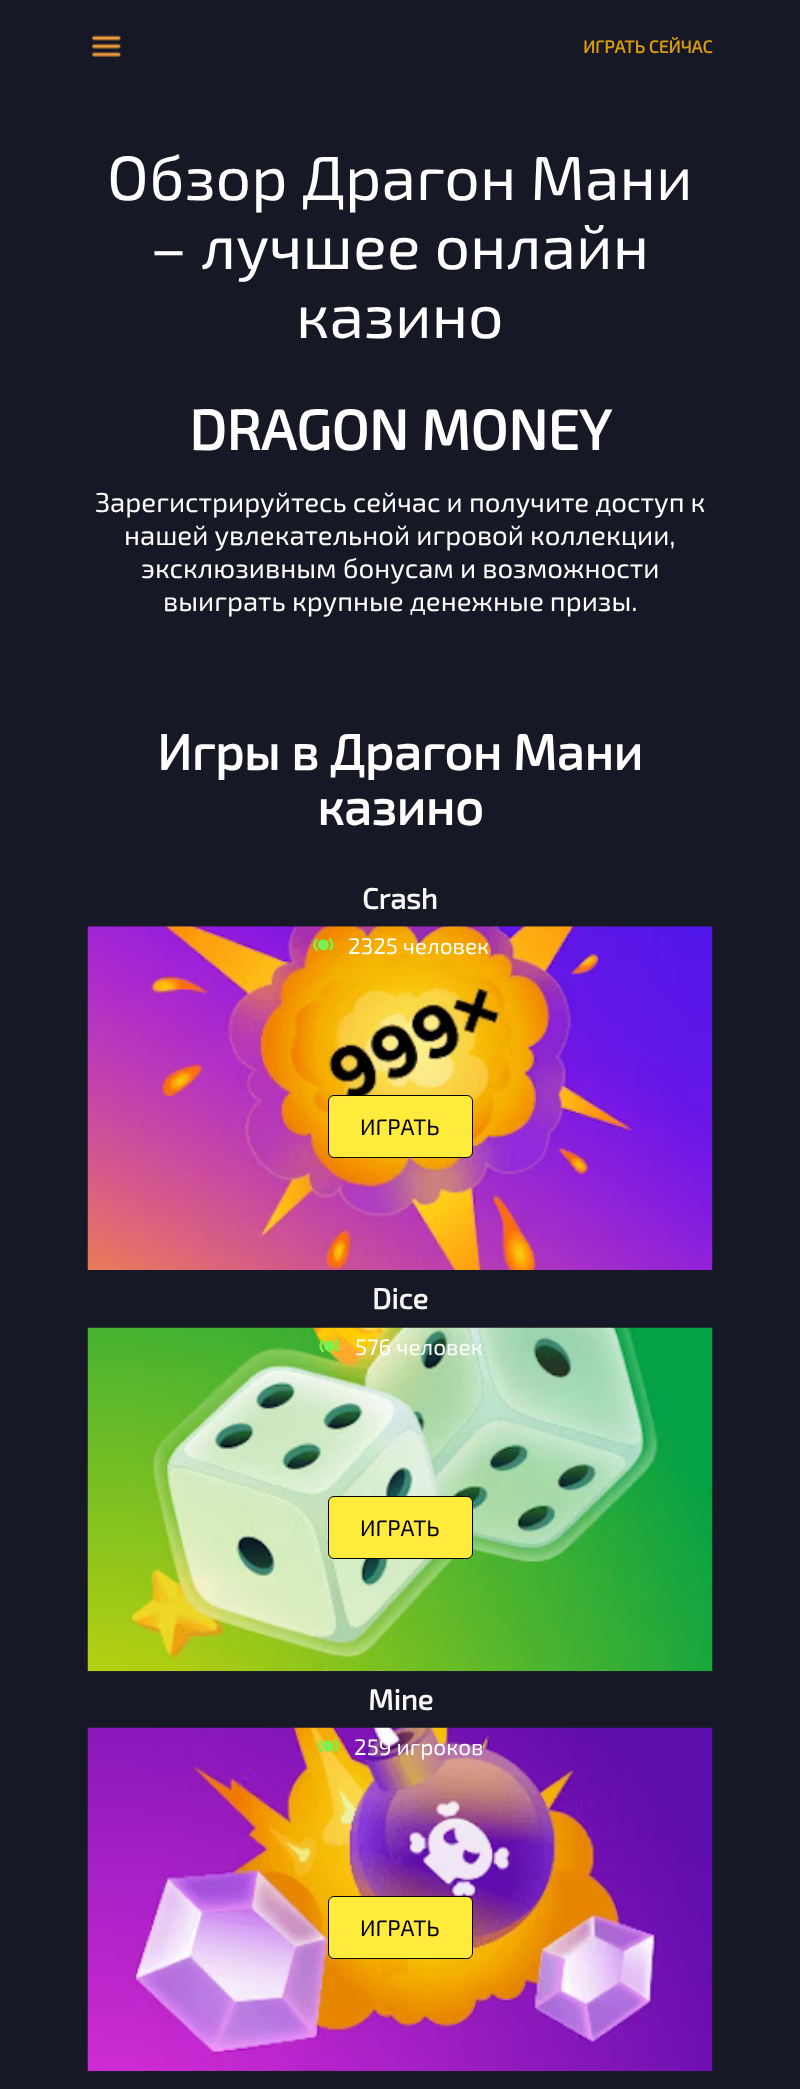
(async () => {
const canvas = document.querySelector("canvas")
canvas.width = 800
canvas.height = 2089
const c = canvas.getContext("2d")
c.miterLimit = 4
c.fontKerning = "normal"
function T(s,x,y){c.fillText(s,x,y)}
function R(x,y,w,h){c.fillRect(x,y,w,h)}
async function I(src,x,y,w,h){const img=new Image();img.src=src;await img.decode();c.drawImage(img,x,y,w,h)}
c.fillStyle="#161925"
R(0,0,800,2089)
await I("1.png",92,35,29,22)
c.font="bold 17.5px 'Exo 2'"
c.fillStyle="#da9c08"
T("ИГРАТЬ СЕЙЧАС",583,53)
c.font="62.5px 'Exo 2'"
c.fillStyle="#fefefe"
T("Обзор Драгон Мани",107,200)
T("– лучшее онлайн",150,269)
T("казино",296,338)
c.font="bold 56.25px 'Exo 2'"
T("DRAGON MONEY",189,450)
c.font="27.5px 'Exo 2'"
T("Зарегистрируйтесь сейчас и получите доступ к",95,512)
T("нашей увлекательной игровой коллекции,",124,545)
T("эксклюзивным бонусам и возможности",141,578)
T("выиграть крупные денежные призы.",163,611)
c.font="bold 50px 'Exo 2'"
T("Игры в Драгон Мани",157,770)
T("казино",317,825)
c.font="bold 29px 'Exo 2'"
c.fillStyle="#f7f7f5"
T("Crash",362,909)
await I("2.png",87,926,626,344)
await I("3.png",313,938,21,14)
c.font="22.5px 'Exo 2'"
c.fillStyle="#fefefe"
T("2325 человек",348,954)
c.fillStyle="#ffeb3b"
c.beginPath()
c.roundRect(328.5,1095.5,144,62,5.5)
c.fill()
c.strokeStyle="#000"
c.stroke()
c.fillStyle="#000"
T("ИГРАТЬ",360,1135)
c.font="bold 29px 'Exo 2'"
c.fillStyle="#f7f7f5"
T("Dice",372,1309)
await I("4.png",87,1327,626,345)
await I("5.png",319,1339,21,14)
c.font="22.5px 'Exo 2'"
c.fillStyle="#fefefe"
T("576 человек",355,1355)
c.fillStyle="#ffeb3b"
c.beginPath()
c.roundRect(328.5,1496.5,144,62,5.5)
c.fill()
c.stroke()
c.fillStyle="#000"
T("ИГРАТЬ",360,1536)
c.font="bold 29px 'Exo 2'"
c.fillStyle="#f7f7f5"
T("Mine",368,1710)
await I("6.png",87,1727,626,345)
await I("7.png",318,1739,21,14)
c.font="22.5px 'Exo 2'"
c.fillStyle="#fefefe"
T("259 игроков",354,1755)
c.fillStyle="#ffeb3b"
c.beginPath()
c.roundRect(328.5,1896.5,144,62,5.5)
c.fill()
c.stroke()
c.fillStyle="#000"
T("ИГРАТЬ",360,1936)
})()
